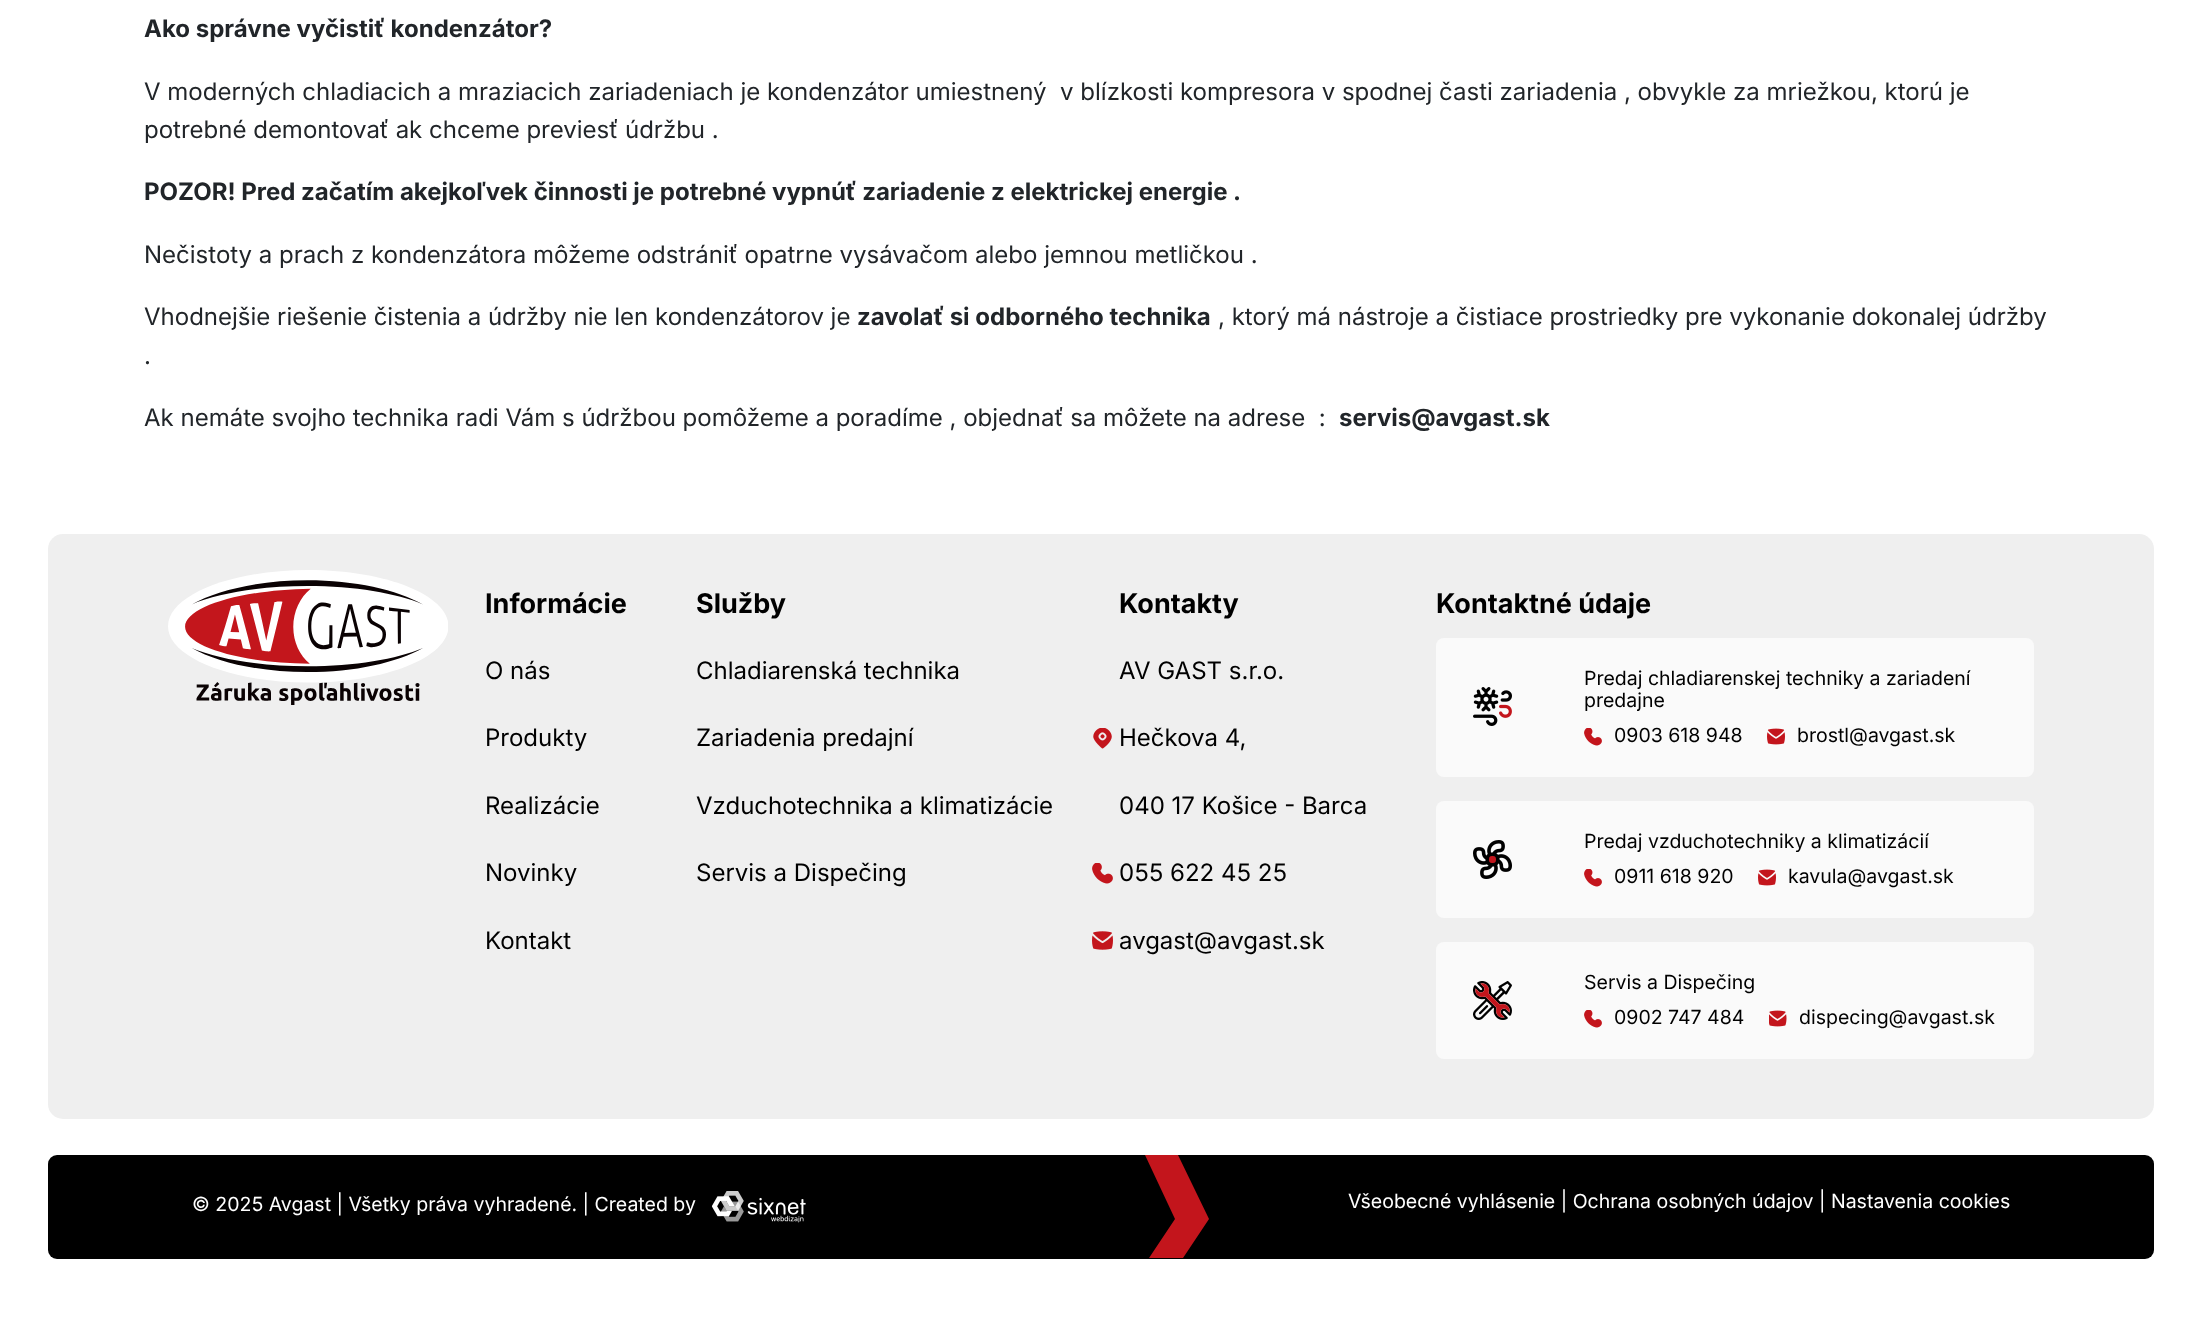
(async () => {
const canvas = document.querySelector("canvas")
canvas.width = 2202
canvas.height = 1330
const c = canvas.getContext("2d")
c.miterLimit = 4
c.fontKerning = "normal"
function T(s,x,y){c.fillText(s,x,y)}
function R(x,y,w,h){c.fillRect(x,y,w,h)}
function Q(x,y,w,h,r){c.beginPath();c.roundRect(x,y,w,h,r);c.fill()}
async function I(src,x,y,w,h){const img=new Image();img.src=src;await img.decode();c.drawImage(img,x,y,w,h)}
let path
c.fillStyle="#fff"
R(0,0,2202,1330)
c.font="bold 24px Inter"
c.fillStyle="#212529"
T("Ako správne vyčistiť kondenzátor?",144,37)
c.font="24px Inter"
T("V moderných chladiacich a mraziacich zariadeniach je kondenzátor umiestnený  v blízkosti kompresora v spodnej časti zariadenia , obvykle za mriežkou, ktorú je",144,100)
T("potrebné demontovať ak chceme previesť údržbu .",144,138)
c.font="bold 24px Inter"
T("POZOR! Pred začatím akejkoľvek činnosti je potrebné vypnúť zariadenie z elektrickej energie .",144,200)
c.font="24px Inter"
T("Nečistoty a prach z kondenzátora môžeme odstrániť opatrne vysávačom alebo jemnou metličkou .",144,263)
T("Vhodnejšie riešenie čistenia a údržby nie len kondenzátorov je",144,325)
c.font="bold 24px Inter"
T("zavolať si odborného technika",857,325)
c.font="24px Inter"
T(", ktorý má nástroje a čistiace prostriedky pre vykonanie dokonalej údržby",1218,325)
T(".",144,364)
T("Ak nemáte svojho technika radi Vám s údržbou pomôžeme a poradíme , objednať sa môžete na adrese  :",144,426)
c.font="bold 24px Inter"
T("servis@avgast.sk",1339,426)
c.fillStyle="#efefef"
Q(48,534,2106,585,15)
await I("1.png",168,570,280,135)
c.font="bold 27px Inter"
c.fillStyle="#000"
T("Informácie",485,613)
c.font="24px Inter"
T("O nás",485,679)
T("Produkty",485,746)
T("Realizácie",485,814)
T("Novinky",485,881)
T("Kontakt",485,949)
c.font="bold 27px Inter"
T("Služby",696,613)
c.font="24px Inter"
T("Chladiarenská technika",696,679)
T("Zariadenia predajní",696,746)
T("Vzduchotechnika a klimatizácie",696,814)
T("Servis a Dispečing",696,881)
c.font="bold 27px Inter"
T("Kontakty",1119,613)
await I("2.png",1093,728,19,21)
c.font="24px Inter"
T("AV GAST s.r.o.",1119,679)
T("Hečkova 4,",1119,746)
T("040 17 Košice - Barca",1119,814)
await I("3.png",1092,863,21,21)
T("055 622 45 25",1119,881)
await I("4.png",1092,931,21,19)
T("avgast@avgast.sk",1119,949)
c.font="bold 27px Inter"
T("Kontaktné údaje",1436,613)
c.fillStyle="#fafafa"
Q(1436,638,598,139,8)
await I("5.png",1473,687,39,39)
c.font="19.5px Inter"
c.fillStyle="#000"
T("Predaj chladiarenskej techniky a zariadení",1584,685)
T("predajne",1584,707)
await I("6.png",1584,728,18,18)
T("0903 618 948",1614,742)
await I("7.png",1767,728,18,17)
T("brostl@avgast.sk",1797,742)
c.fillStyle="#fafafa"
Q(1436,801,598,117,8)
await I("8.png",1473,840,39,39)
c.fillStyle="#000"
T("Predaj vzduchotechniky a klimatizácií",1584,848)
await I("6.png",1584,869,18,18)
T("0911 618 920",1614,883)
await I("7.png",1758,869,18,17)
T("kavula@avgast.sk",1788,883)
c.fillStyle="#fafafa"
Q(1436,942,598,117,8)
await I("9.png",1473,981,39,39)
c.fillStyle="#000"
T("Servis a Dispečing",1584,989)
await I("6.png",1584,1010,18,18)
T("0902 747 484",1614,1024)
await I("10.png",1769,1010,18,17)
T("dispecing@avgast.sk",1799,1024)
Q(48,1155,2106,104,9)
c.fillStyle="#c3151c"
path = new Path2D("M1209 1219h0zm0 0l-31-64h-33l30 64l-26 39h34z")
c.fill(path)
c.fillStyle="#fff"
T("© 2025 Avgast | Všetky práva vyhradené. | Created by",192,1211)
await I("11.png",711,1191,95,32)
T("Všeobecné vyhlásenie | Ochrana osobných údajov | Nastavenia cookies",1348,1208)
})()
